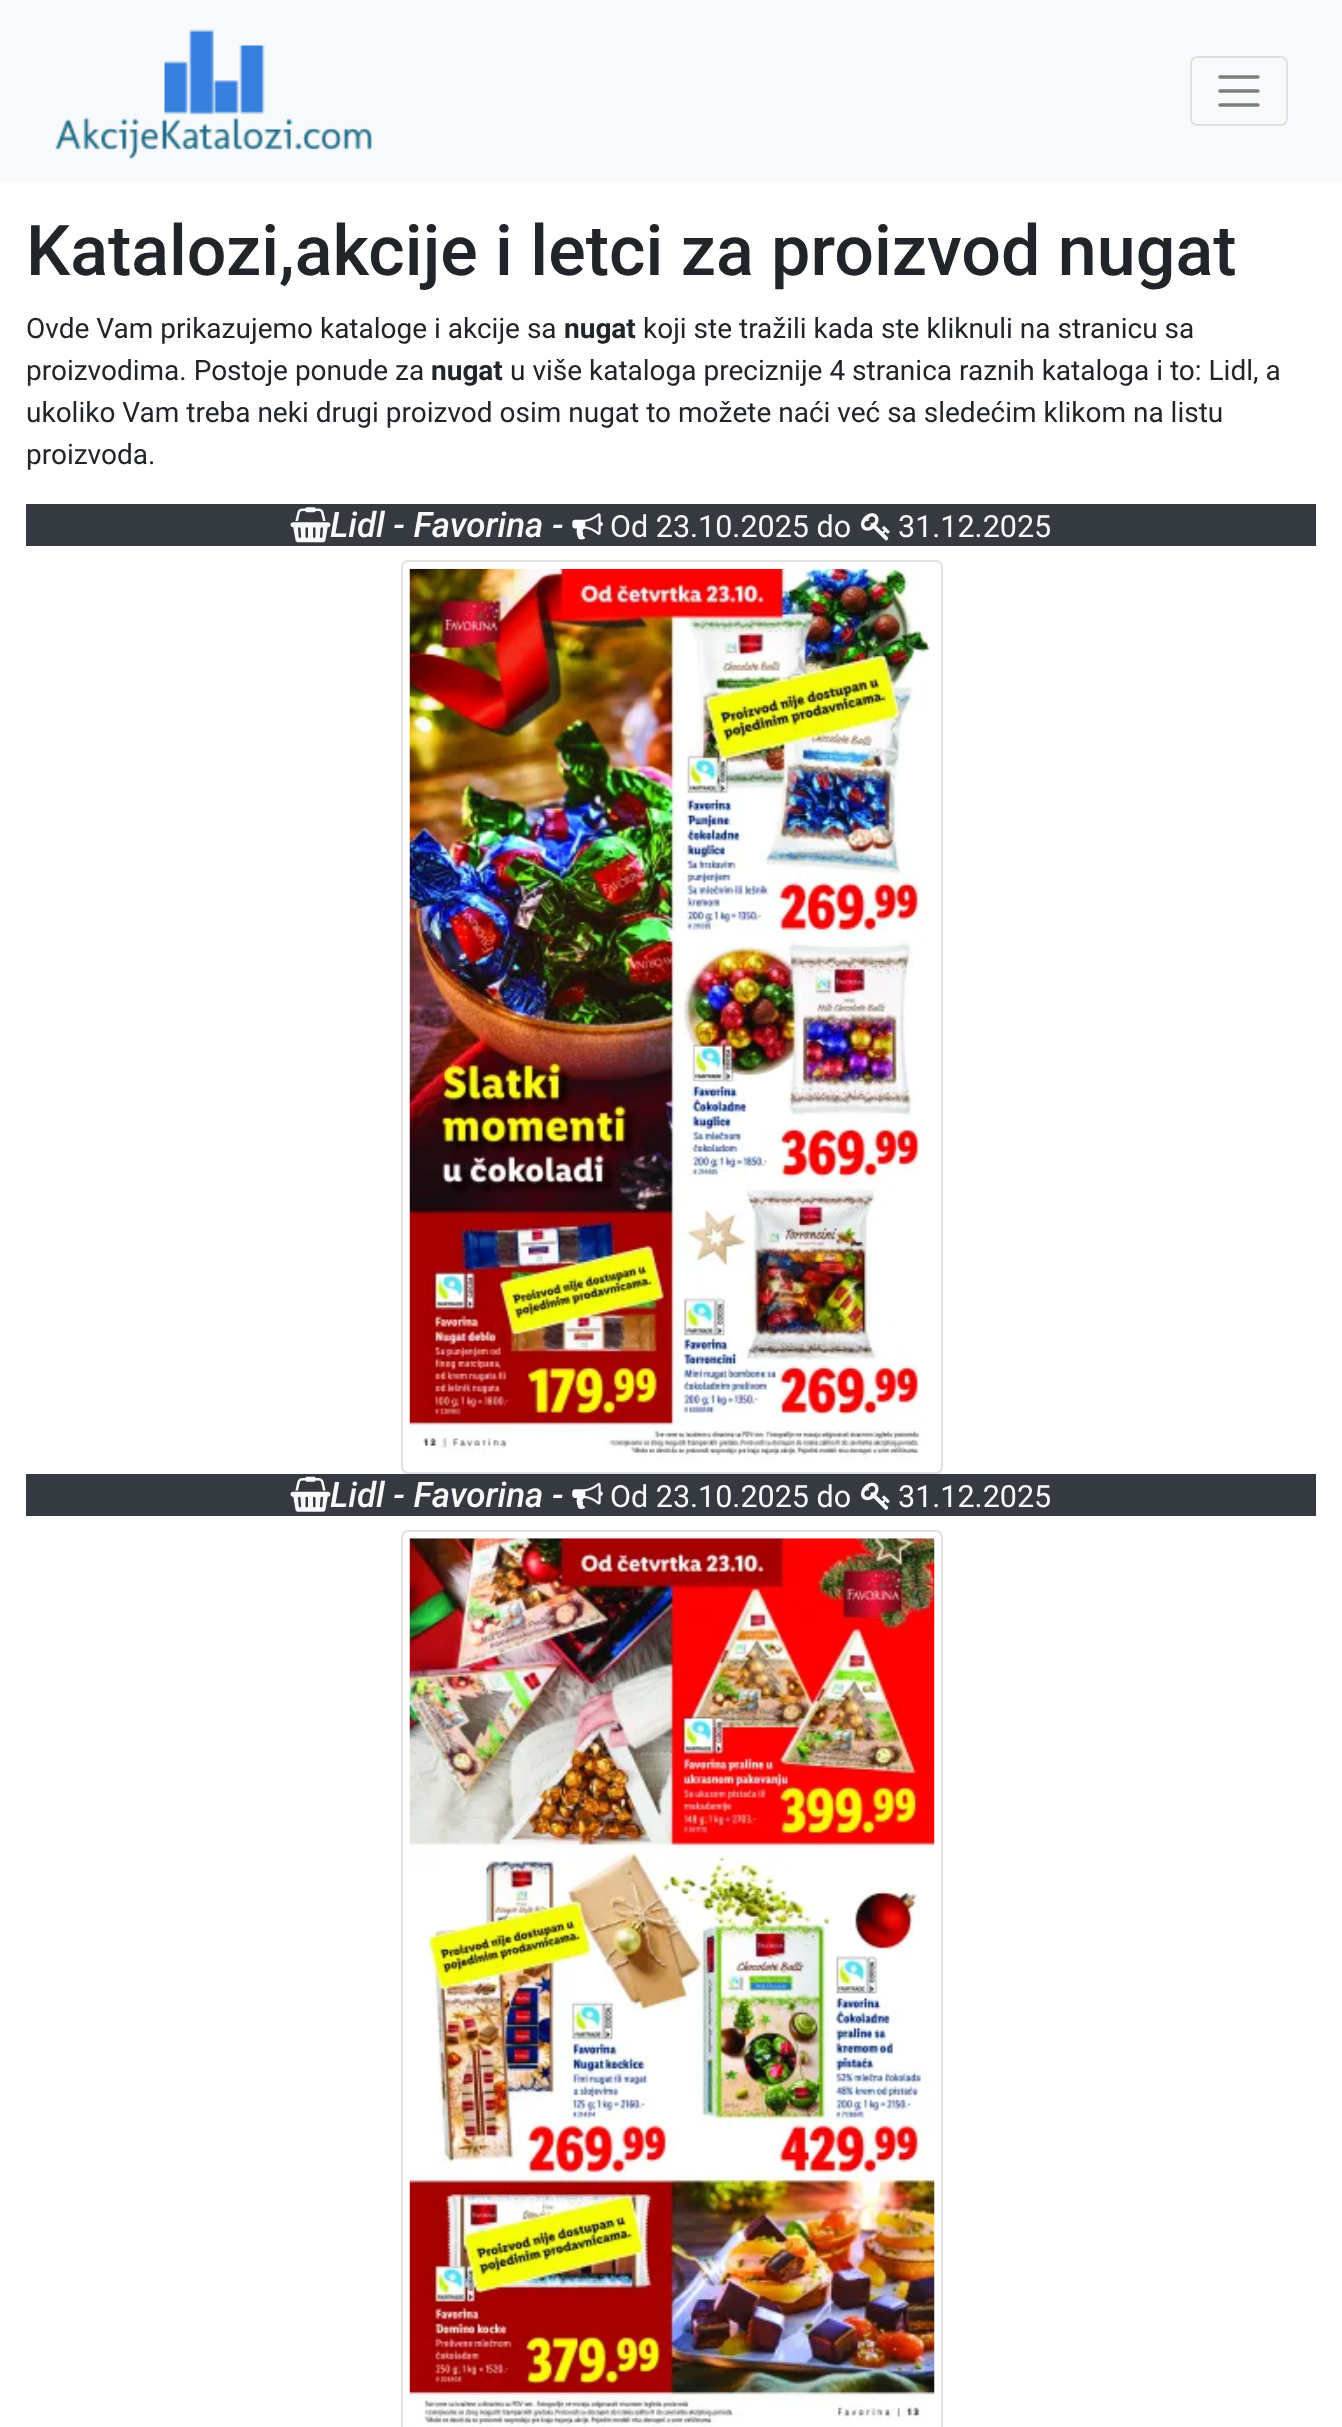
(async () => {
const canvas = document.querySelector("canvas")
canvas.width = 1342
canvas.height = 2427
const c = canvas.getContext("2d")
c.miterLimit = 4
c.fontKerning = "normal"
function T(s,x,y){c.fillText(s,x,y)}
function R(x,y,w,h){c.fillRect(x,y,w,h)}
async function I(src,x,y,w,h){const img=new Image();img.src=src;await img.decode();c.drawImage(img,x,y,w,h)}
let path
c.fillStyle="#fff"
R(0,0,1342,2427)
c.fillStyle="#f8f9fa"
R(0,0,1342,182)
await I("1.png",55,29,318,131)
c.beginPath()
c.roundRect(1191,57,96,68,6)
c.strokeStyle="#dfe0e1"
c.lineWidth=2
c.stroke()
path = new Path2D("M1220 77h38m-38 14h38m-38 14h38")
c.strokeStyle="#7c7d7d"
c.lineWidth=3.5
c.lineCap="round"
c.stroke(path)
c.font="500 70px Roboto"
c.fillStyle="#212529"
T("Katalozi,akcije i letci za proizvod nugat",26,275)
c.font="28px Roboto"
T("Ovde Vam prikazujemo kataloge i akcije sa",26,338)
c.font="bold 28px Roboto"
T("nugat",564,338)
c.font="28px Roboto"
T("koji ste tražili kada ste kliknuli na stranicu sa",643,338)
T("proizvodima. Postoje ponude za",26,380)
c.font="bold 28px Roboto"
T("nugat",431,380)
c.font="28px Roboto"
T("u više kataloga preciznije 4 stranica raznih kataloga i to: Lidl, a",510,380)
T("ukoliko Vam treba neki drugi proizvod osim nugat to možete naći već sa sledećim klikom na listu",26,422)
T("proizvoda.",26,464)
c.fillStyle="#343a40"
R(26,504,1290,42)
await I("2.png",290,507,41,36)
c.font="italic 500 35px Roboto"
c.fillStyle="#f8f9fa"
T("Lidl - Favorina -",330,537)
await I("3.png",572,513,31,27)
c.font="30.5px Roboto"
T("Od 23.10.2025 do",610,537)
await I("4.png",861,513,29,28)
T("31.12.2025",898,537)
c.beginPath()
c.roundRect(402,561,540,912,6)
c.strokeStyle="#dee2e6"
c.lineWidth=2
c.stroke()
await I("5.png",409,568,521,890)
c.fillStyle="#343a40"
R(26,1474,1290,42)
await I("6.png",290,1476,41,36)
c.font="italic 500 35px Roboto"
c.fillStyle="#f8f9fa"
T("Lidl - Favorina -",330,1507)
await I("7.png",572,1482,31,27)
c.font="30.5px Roboto"
T("Od 23.10.2025 do",610,1507)
await I("8.png",861,1482,29,28)
T("31.12.2025",898,1507)
c.beginPath()
c.roundRect(402,1531,540,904,6)
c.stroke()
await I("9.png",409,1538,526,889)
})()
